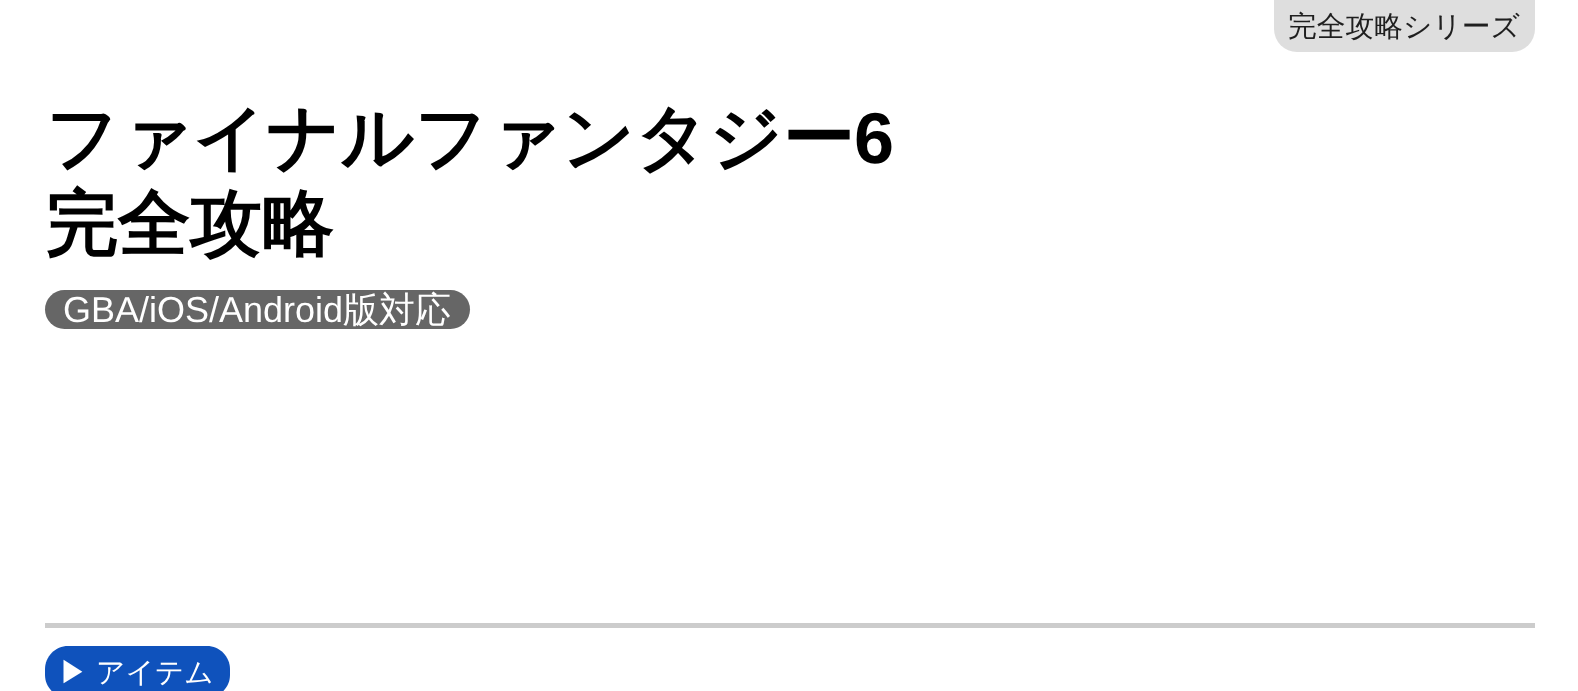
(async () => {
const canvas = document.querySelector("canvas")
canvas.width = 1578
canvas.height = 691
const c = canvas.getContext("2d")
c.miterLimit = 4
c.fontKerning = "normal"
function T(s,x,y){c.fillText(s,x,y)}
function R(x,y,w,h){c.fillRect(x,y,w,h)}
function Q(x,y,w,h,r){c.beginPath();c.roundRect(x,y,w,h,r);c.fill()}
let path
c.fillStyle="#fff"
R(0,0,1578,691)
c.fillStyle="#ccc"
R(45,623,1490,5)
c.fillStyle="#dedede"
c.beginPath()
c.roundRect(1274,0,261,52,[0,0,23,23])
c.fill()
c.font="500 28.75px WenQuanYi Zen Hei"
c.fillStyle="#1f1f1f"
T("完全攻略シリーズ",1288,36)
c.font="bold 72px WenQuanYi Zen Hei"
c.fillStyle="#000"
T("ファイナルファンタジー",45,163)
c.font="bold 72px Liberation Sans"
T("6",854,163)
c.font="bold 72px WenQuanYi Zen Hei"
T("完全攻略",45,249)
c.fillStyle="#666"
Q(45,290,425,39,19.5)
c.font="36px Liberation Sans"
c.fillStyle="#fff"
T("GBA/iOS/Android",63,322)
c.font="500 36px WenQuanYi Zen Hei"
T("版対応",343,322)
c.fillStyle="#0f52bc"
path = new Path2D("M68 646h29v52h-29c-12.5 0-23-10.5-23-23v-6c0-12.5 10.5-23 23-23z")
c.fill(path)
c.font="500 28.75px WenQuanYi Zen Hei"
c.fillStyle="#fff"
T("▶",59,682)
c.fillStyle="#0f52bc"
path = new Path2D("M97 646h110c12.5 0 23 10.5 23 23v6c0 12.5-10.5 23-23 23h-110z")
c.fill(path)
c.fillStyle="#fff"
T("アイテム",96,682)
})()
